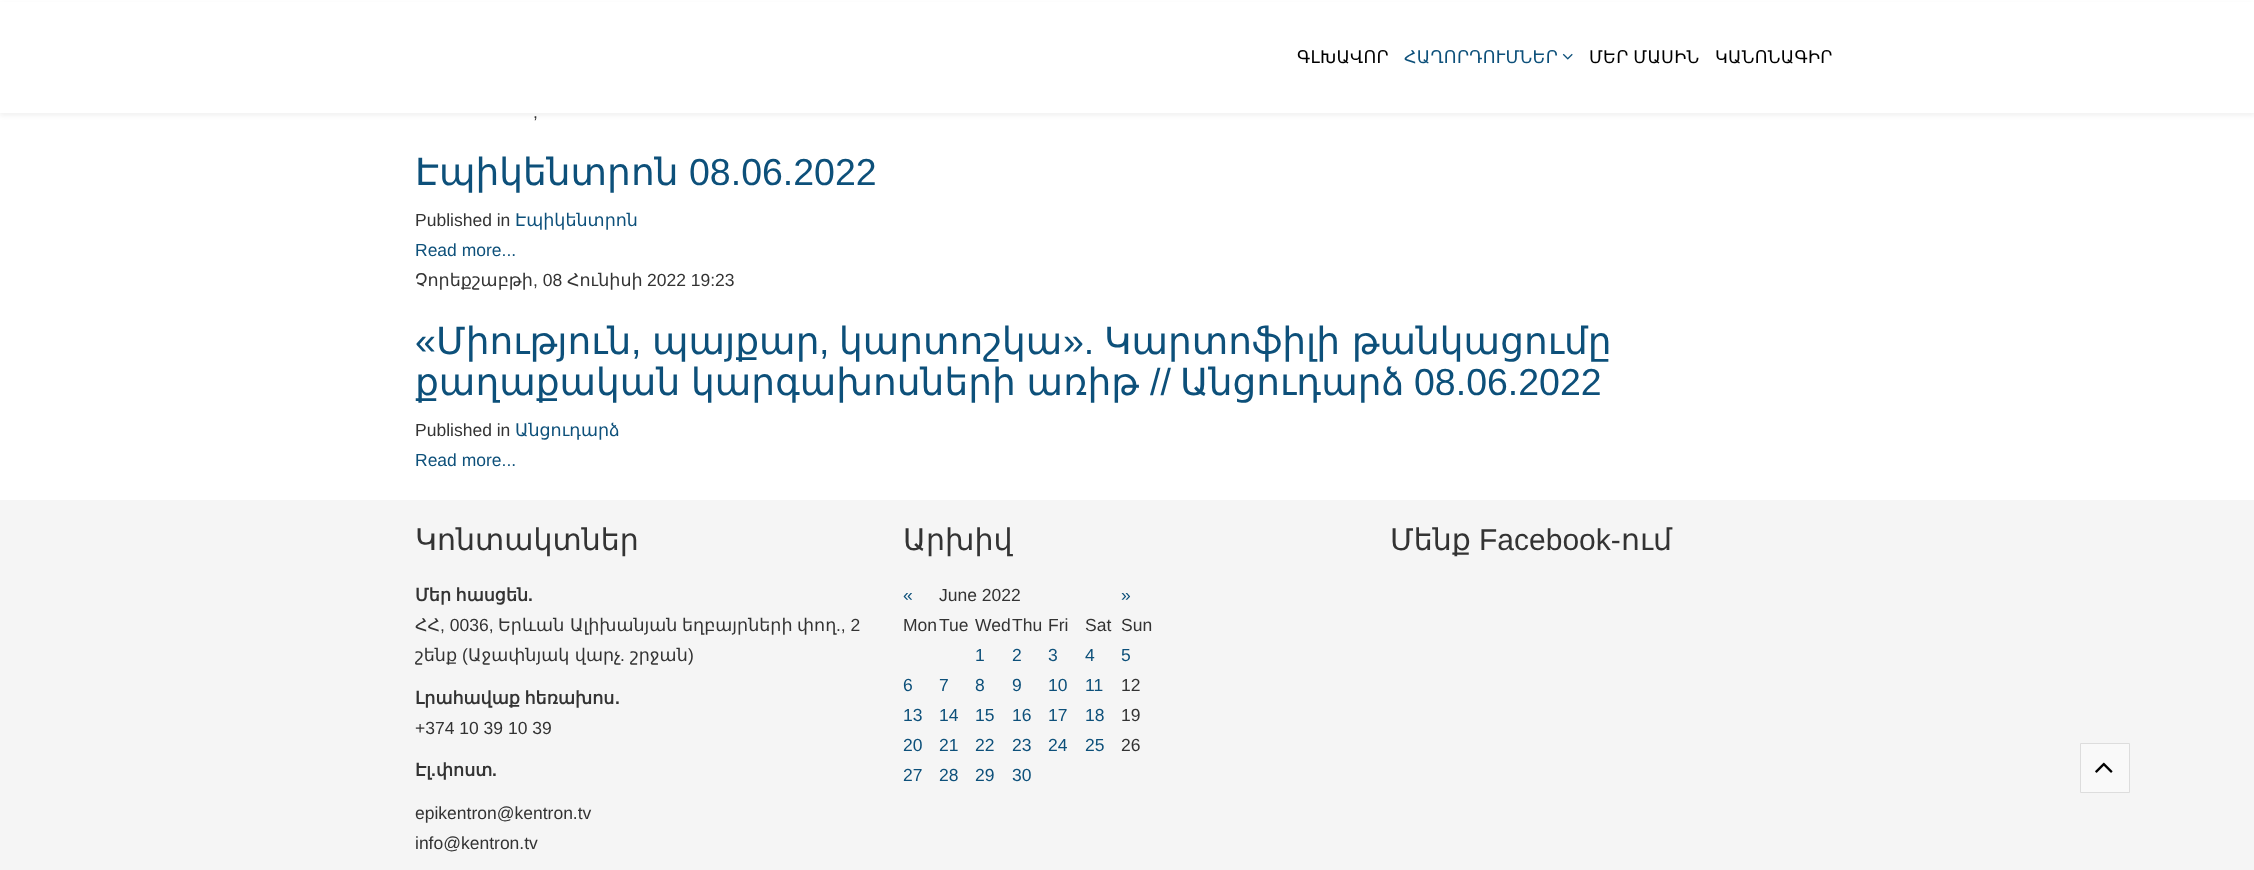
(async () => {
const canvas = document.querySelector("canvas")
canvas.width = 2254
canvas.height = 870
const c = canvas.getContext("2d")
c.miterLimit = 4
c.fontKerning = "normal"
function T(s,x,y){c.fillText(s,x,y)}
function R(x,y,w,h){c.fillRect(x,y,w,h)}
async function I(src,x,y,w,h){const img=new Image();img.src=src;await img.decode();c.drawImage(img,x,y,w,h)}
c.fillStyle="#fff"
R(0,0,2254,870)
c.fillStyle="#0000000d"
c.filter="blur(2px)"
c.beginPath()
c.rect(0,4,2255,112)
c.fill()
c.filter="none"
c.fillStyle="#fff"
R(0,2,2254,111)
c.letterSpacing="0.25px"
c.font="17.5px DejaVu Sans"
c.fillStyle="#000"
T("ԳԼԽԱՎՈՐ",1297,63)
c.fillStyle="#0d507a"
T("ՀԱՂՈՐԴՈՒՄՆԵՐ",1404,63)
await I("1.png",1562,53,11,7)
c.wordSpacing="-1px"
c.fillStyle="#000"
T("ՄԵՐ ՄԱՍԻՆ",1589,63)
c.wordSpacing="0px"
T("ԿԱՆՈՆԱԳԻՐ",1715,63)
c.letterSpacing="0px"
c.font="17.5px Liberation Sans"
c.fillStyle="#333"
T(",",533,118)
c.font="37.5px DejaVu Sans"
c.fillStyle="#0d507a"
T("Էպիկենտրոն",415,185)
c.font="37.5px Liberation Sans"
T("08.06.2022",689,185)
c.font="17.5px Liberation Sans"
c.fillStyle="#333"
T("Published in",415,226)
c.font="17.5px DejaVu Sans"
c.fillStyle="#0d507a"
T("Էպիկենտրոն",515,226)
c.font="17.5px Liberation Sans"
T("Read more...",415,256)
c.font="17.5px DejaVu Sans"
c.fillStyle="#333"
T("Չորեքշաբթի",415,286)
c.font="17.5px Liberation Sans"
T(", 08",533,286)
c.font="17.5px DejaVu Sans"
T("Հունիսի",567,286)
c.font="17.5px Liberation Sans"
T("2022 19:23",647,286)
c.font="37.5px Liberation Sans"
c.fillStyle="#0d507a"
T("«",415,354)
c.font="37.5px DejaVu Sans"
T("Միություն",436,354)
c.font="37.5px Liberation Sans"
T(",",631,354)
c.font="37.5px DejaVu Sans"
T("պայքար",652,354)
c.font="37.5px Liberation Sans"
T(",",819,354)
c.font="37.5px DejaVu Sans"
T("կարտոշկա",839,354)
c.font="37.5px Liberation Sans"
T("».",1063,354)
c.font="37.5px DejaVu Sans"
T("Կարտոֆիլի թանկացումը",1104,354)
c.wordSpacing="-1px"
T("քաղաքական կարգախոսների առիթ",415,395)
c.wordSpacing="0px"
c.font="37.5px Liberation Sans"
T("//",1150,395)
c.font="37.5px DejaVu Sans"
T("Անցուդարձ",1180,395)
c.font="37.5px Liberation Sans"
T("08.06.2022",1414,395)
c.font="17.5px Liberation Sans"
c.fillStyle="#333"
T("Published in",415,436)
c.font="17.5px DejaVu Sans"
c.fillStyle="#0d507a"
T("Անցուդարձ",515,436)
c.font="17.5px Liberation Sans"
T("Read more...",415,466)
c.fillStyle="#f5f5f5"
R(0,500,2254,370)
c.font="30px DejaVu Sans"
c.fillStyle="#333"
T("Կոնտակտներ",415,550)
c.wordSpacing="-1px"
c.font="bold 17.5px DejaVu Sans"
T("Մեր հասցեն",415,601)
c.wordSpacing="0px"
c.font="bold 17.5px Liberation Sans"
T(".",528,601)
c.font="17.5px DejaVu Sans"
T("ՀՀ",415,631)
c.font="17.5px Liberation Sans"
T(", 0036,",440,631)
c.font="17.5px DejaVu Sans"
T("Երևան",498,631)
T("Ալիխանյան",570,631)
T("եղբայրների",682,631)
T("փող",797,631)
c.font="17.5px Liberation Sans"
T("., 2",836,631)
c.font="17.5px DejaVu Sans"
T("շենք",415,661)
c.font="17.5px Liberation Sans"
T("(",462,661)
c.font="17.5px DejaVu Sans"
T("Աջափնյակ վարչ",468,661)
c.font="17.5px Liberation Sans"
T(".",620,661)
c.font="17.5px DejaVu Sans"
T("շրջան",630,661)
c.font="17.5px Liberation Sans"
T(")",688,661)
c.wordSpacing="-1px"
c.font="bold 17.5px DejaVu Sans"
T("Լրահավաք հեռախոս",415,704)
c.wordSpacing="0px"
c.font="bold 17.5px Liberation Sans"
T(".",615,704)
c.font="17.5px Liberation Sans"
T("+374 10 39 10 39",415,734)
c.font="bold 17.5px DejaVu Sans"
T("Էլ",415,776)
c.font="bold 17.5px Liberation Sans"
T(".",431,776)
c.font="bold 17.5px DejaVu Sans"
T("փոստ",436,776)
c.font="bold 17.5px Liberation Sans"
T(".",492,776)
c.font="17.5px Liberation Sans"
T("epikentron@kentron.tv",415,819)
T("info@kentron.tv",415,849)
c.font="30px DejaVu Sans"
T("Արխիվ",903,550)
c.font="17.5px Liberation Sans"
c.fillStyle="#0d507a"
T("«",903,601)
c.fillStyle="#333"
T("June 2022",939,601)
c.fillStyle="#0d507a"
T("»",1121,601)
c.fillStyle="#333"
T("Mon",903,631)
T("Tue",939,631)
T("Wed",975,631)
T("Thu",1012,631)
T("Fri",1048,631)
T("Sat",1085,631)
T("Sun",1121,631)
c.fillStyle="#0d507a"
T("1",975,661)
T("2",1012,661)
T("3",1048,661)
T("4",1085,661)
T("5",1121,661)
T("6",903,691)
T("7",939,691)
T("8",975,691)
T("9",1012,691)
T("10",1048,691)
T("11",1085,691)
c.fillStyle="#333"
T("12",1121,691)
c.fillStyle="#0d507a"
T("13",903,721)
T("14",939,721)
T("15",975,721)
T("16",1012,721)
T("17",1048,721)
T("18",1085,721)
c.fillStyle="#333"
T("19",1121,721)
c.fillStyle="#0d507a"
T("20",903,751)
T("21",939,751)
T("22",975,751)
T("23",1012,751)
T("24",1048,751)
T("25",1085,751)
c.fillStyle="#333"
T("26",1121,751)
c.fillStyle="#0d507a"
T("27",903,781)
T("28",939,781)
T("29",975,781)
T("30",1012,781)
c.font="30px DejaVu Sans"
c.fillStyle="#333"
T("Մենք",1390,550)
c.font="30px Liberation Sans"
T("Facebook-",1479,550)
c.font="30px DejaVu Sans"
T("ում",1621,550)
c.fillStyle="#f9f9f9"
c.beginPath()
c.rect(2080.5,743.5,49,49)
c.fill()
c.strokeStyle="#ddd"
c.stroke()
await I("2.png",2095,762,18,11)
})()
